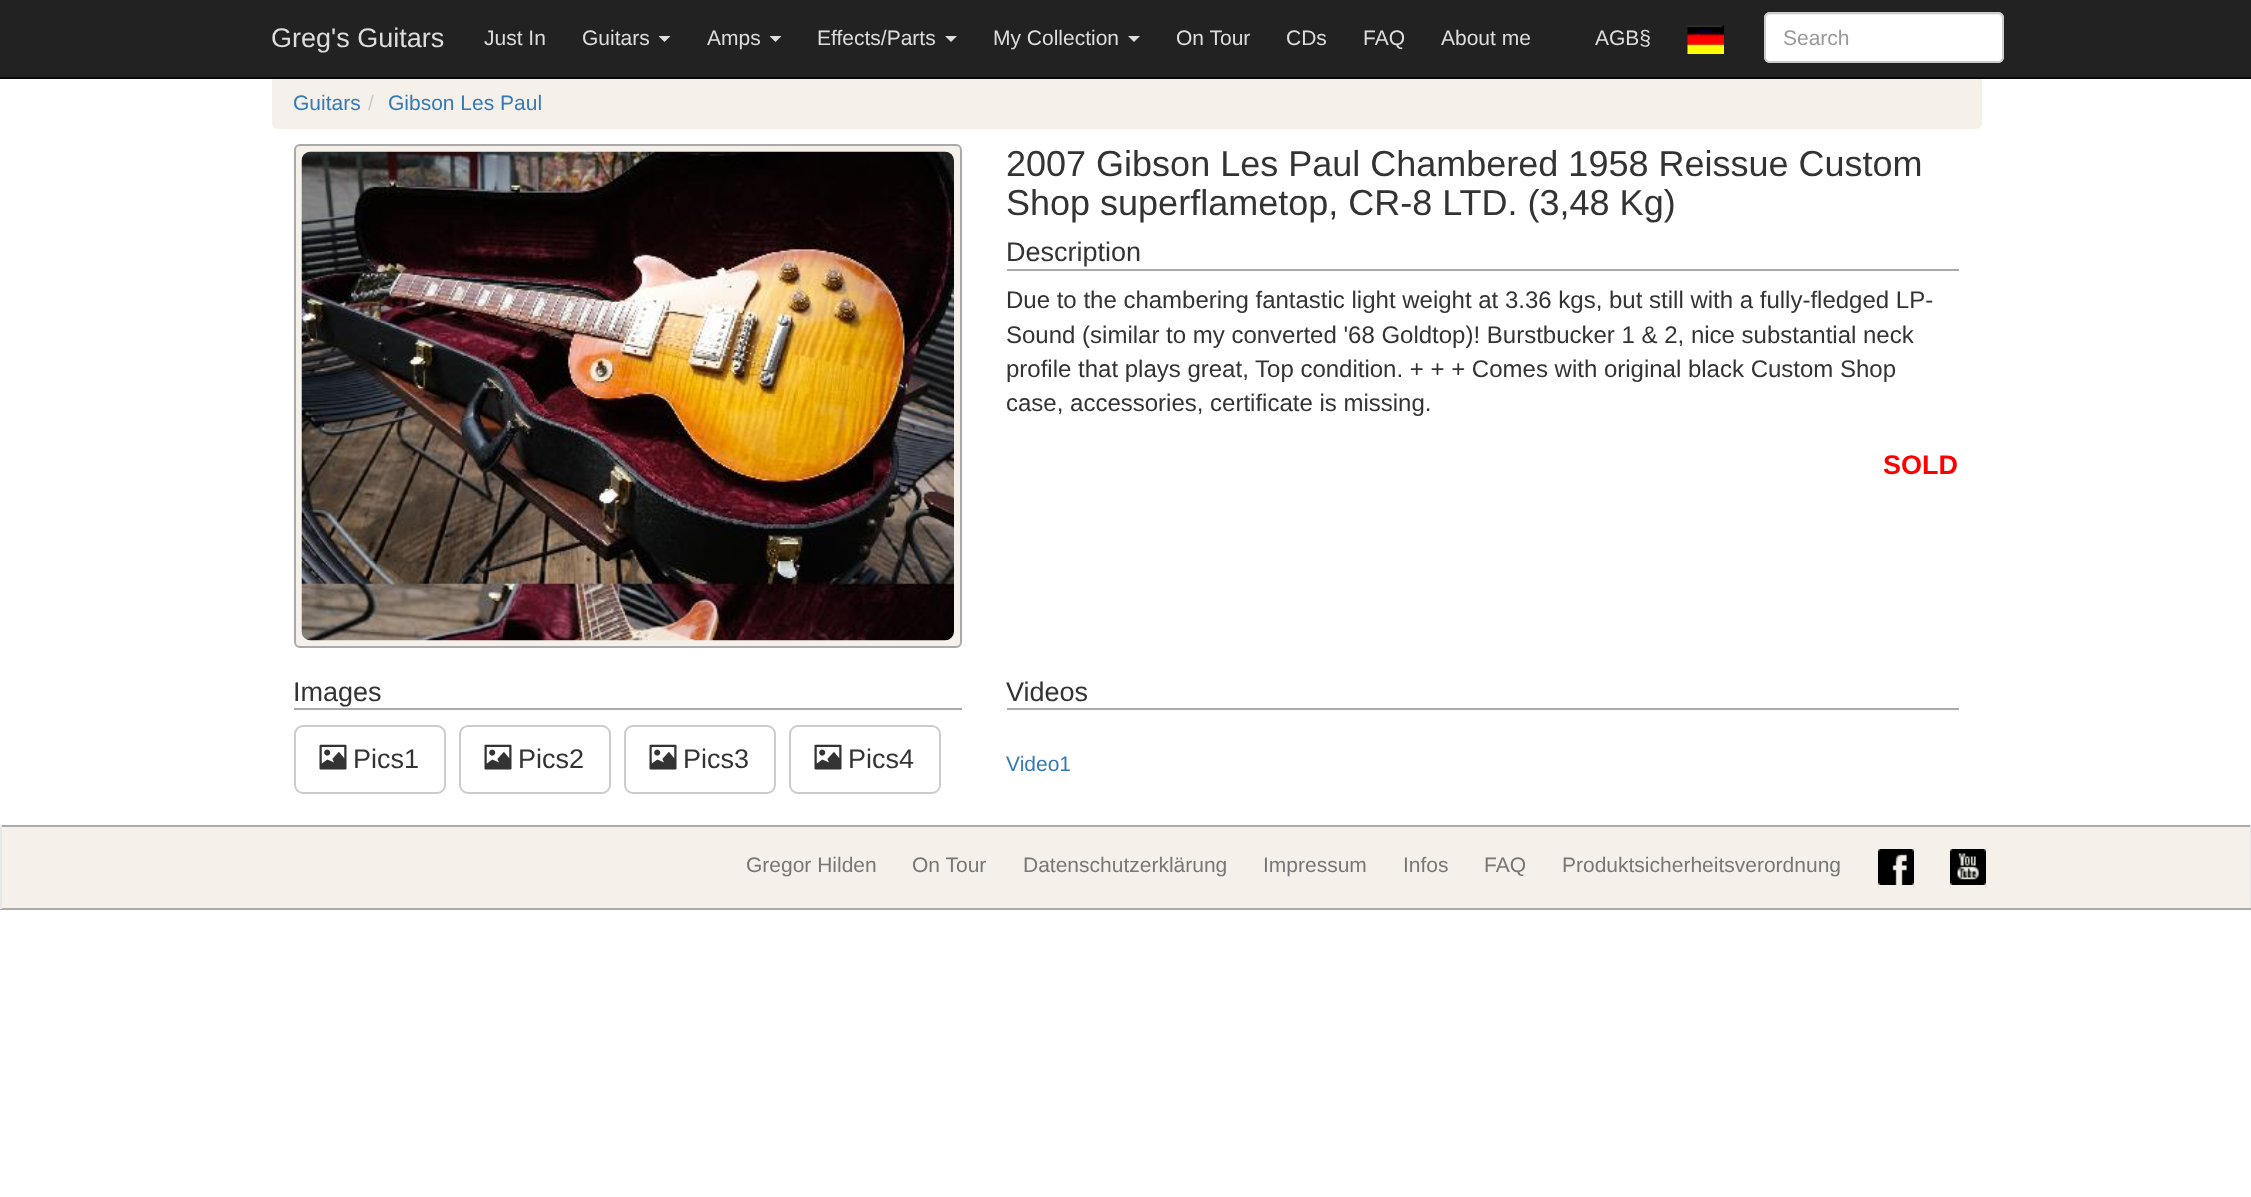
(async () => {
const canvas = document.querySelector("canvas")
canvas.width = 2251
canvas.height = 1197
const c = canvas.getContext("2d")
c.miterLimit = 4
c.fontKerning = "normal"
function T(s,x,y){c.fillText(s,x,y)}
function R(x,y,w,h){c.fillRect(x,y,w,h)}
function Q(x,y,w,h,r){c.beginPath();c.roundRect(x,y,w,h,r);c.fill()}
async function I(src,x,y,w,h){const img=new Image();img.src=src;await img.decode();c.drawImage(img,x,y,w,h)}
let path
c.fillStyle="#fff"
R(0,0,2251,1197)
c.fillStyle="#f5f1ea"
Q(272,75,1710,54,6)
c.fillStyle="#222"
R(0,0,2251,77)
c.fillStyle="#080808"
R(0,77,2251,2)
c.font="27px Liberation Sans"
c.fillStyle="#ddd"
T("Greg's Guitars",271,47)
c.font="21px Liberation Sans"
T("Just In",484,45)
T("Guitars",582,45)
path = new Path2D("M658.5 36h12l-6 6z")
c.fill(path)
T("Amps",707,45)
path = new Path2D("M769.5 36h12l-6 6z")
c.fill(path)
T("Effects/Parts",817,45)
path = new Path2D("M945 36h12l-6 6z")
c.fill(path)
T("My Collection",993,45)
path = new Path2D("M1128 36h12l-6 6z")
c.fill(path)
T("On Tour",1176,45)
T("CDs",1286,45)
T("FAQ",1363,45)
T("About me",1441,45)
T("AGB§",1595,45)
await I("1.png",1687,25,37,29)
c.fillStyle="#fff"
Q(1764,12,240,51,6)
c.fillStyle="#ececec"
path = new Path2D("M1770 15h228c2 0 4 2 4 5v38l-1 3c1-1 2-3 2-4v-38c0-3-2-5-5-5h-227c-3 0-5 2-5 5v1c0-3 2-5 4-5z")
c.fill(path)
c.beginPath()
c.roundRect(1765,13,238,49,5)
c.strokeStyle="#ccc"
c.lineWidth=2
c.stroke()
c.fillStyle="#999"
T("Search",1783,45)
c.fillStyle="#337ab7"
T("Guitars",293,110)
c.fillStyle="#ccc"
T("/",368,110)
c.fillStyle="#337ab7"
T("Gibson Les Paul",388,110)
c.fillStyle="#f5f1ea"
c.beginPath()
c.roundRect(295,145,666,502,5)
c.fill()
c.strokeStyle="#aaa"
c.stroke()
await I("2.png",301,151,653,490)
c.font="36px Liberation Sans"
c.fillStyle="#333"
T("2007 Gibson Les Paul Chambered 1958 Reissue Custom",1006,176)
T("Shop superflametop, CR-8 LTD. (3,48 Kg)",1006,215)
c.fillStyle="#aaa"
R(1007,269,952,2)
c.font="27px Liberation Sans"
c.fillStyle="#333"
T("Description",1006,261)
c.font="24px Liberation Sans"
T("Due to the chambering fantastic light weight at 3.36 kgs, but still with a fully-fledged LP-",1006,308)
T("Sound (similar to my converted '68 Goldtop)! Burstbucker 1 & 2, nice substantial neck",1006,343)
T("profile that plays great, Top condition. + + + Comes with original black Custom Shop",1006,377)
T("case, accessories, certificate is missing.",1006,411)
c.font="bold 27px Liberation Sans"
c.fillStyle="#f00"
T("SOLD",1883,474)
c.fillStyle="#aaa"
R(294,708,668,2)
c.font="27px Liberation Sans"
c.fillStyle="#333"
T("Images",293,701)
c.beginPath()
c.roundRect(295,726,150,67,8)
c.strokeStyle="#ccc"
c.stroke()
await I("3.png",319,744,28,26)
T("Pics1",353,768)
c.beginPath()
c.roundRect(460,726,150,67,8)
c.stroke()
await I("3.png",484,744,28,26)
T("Pics2",518,768)
c.beginPath()
c.roundRect(625,726,150,67,8)
c.stroke()
await I("3.png",649,744,28,26)
T("Pics3",683,768)
c.beginPath()
c.roundRect(790,726,150,67,8)
c.stroke()
await I("3.png",814,744,28,26)
T("Pics4",848,768)
c.fillStyle="#aaa"
R(1007,708,952,2)
c.fillStyle="#333"
T("Videos",1006,701)
c.font="21px Liberation Sans"
c.fillStyle="#337ab7"
T("Video1",1006,771)
c.fillStyle="#f5f1ea"
R(2,827,2248,81)
c.fillStyle="#aaa"
R(0,825,2251,2)
c.fillStyle="#e7e7e7"
R(2250,825,1,84)
c.fillStyle="#aaa"
R(0,908,2251,2)
c.fillStyle="#e7e7e7"
R(0,825,2,84)
c.fillStyle="#777"
T("Gregor Hilden",746,872)
T("On Tour",912,872)
T("Datenschutzerklärung",1023,872)
T("Impressum",1263,872)
T("Infos",1403,872)
T("FAQ",1484,872)
T("Produktsicherheitsverordnung",1562,872)
await I("4.png",1878,849,36,36)
await I("5.png",1950,849,36,36)
})()
